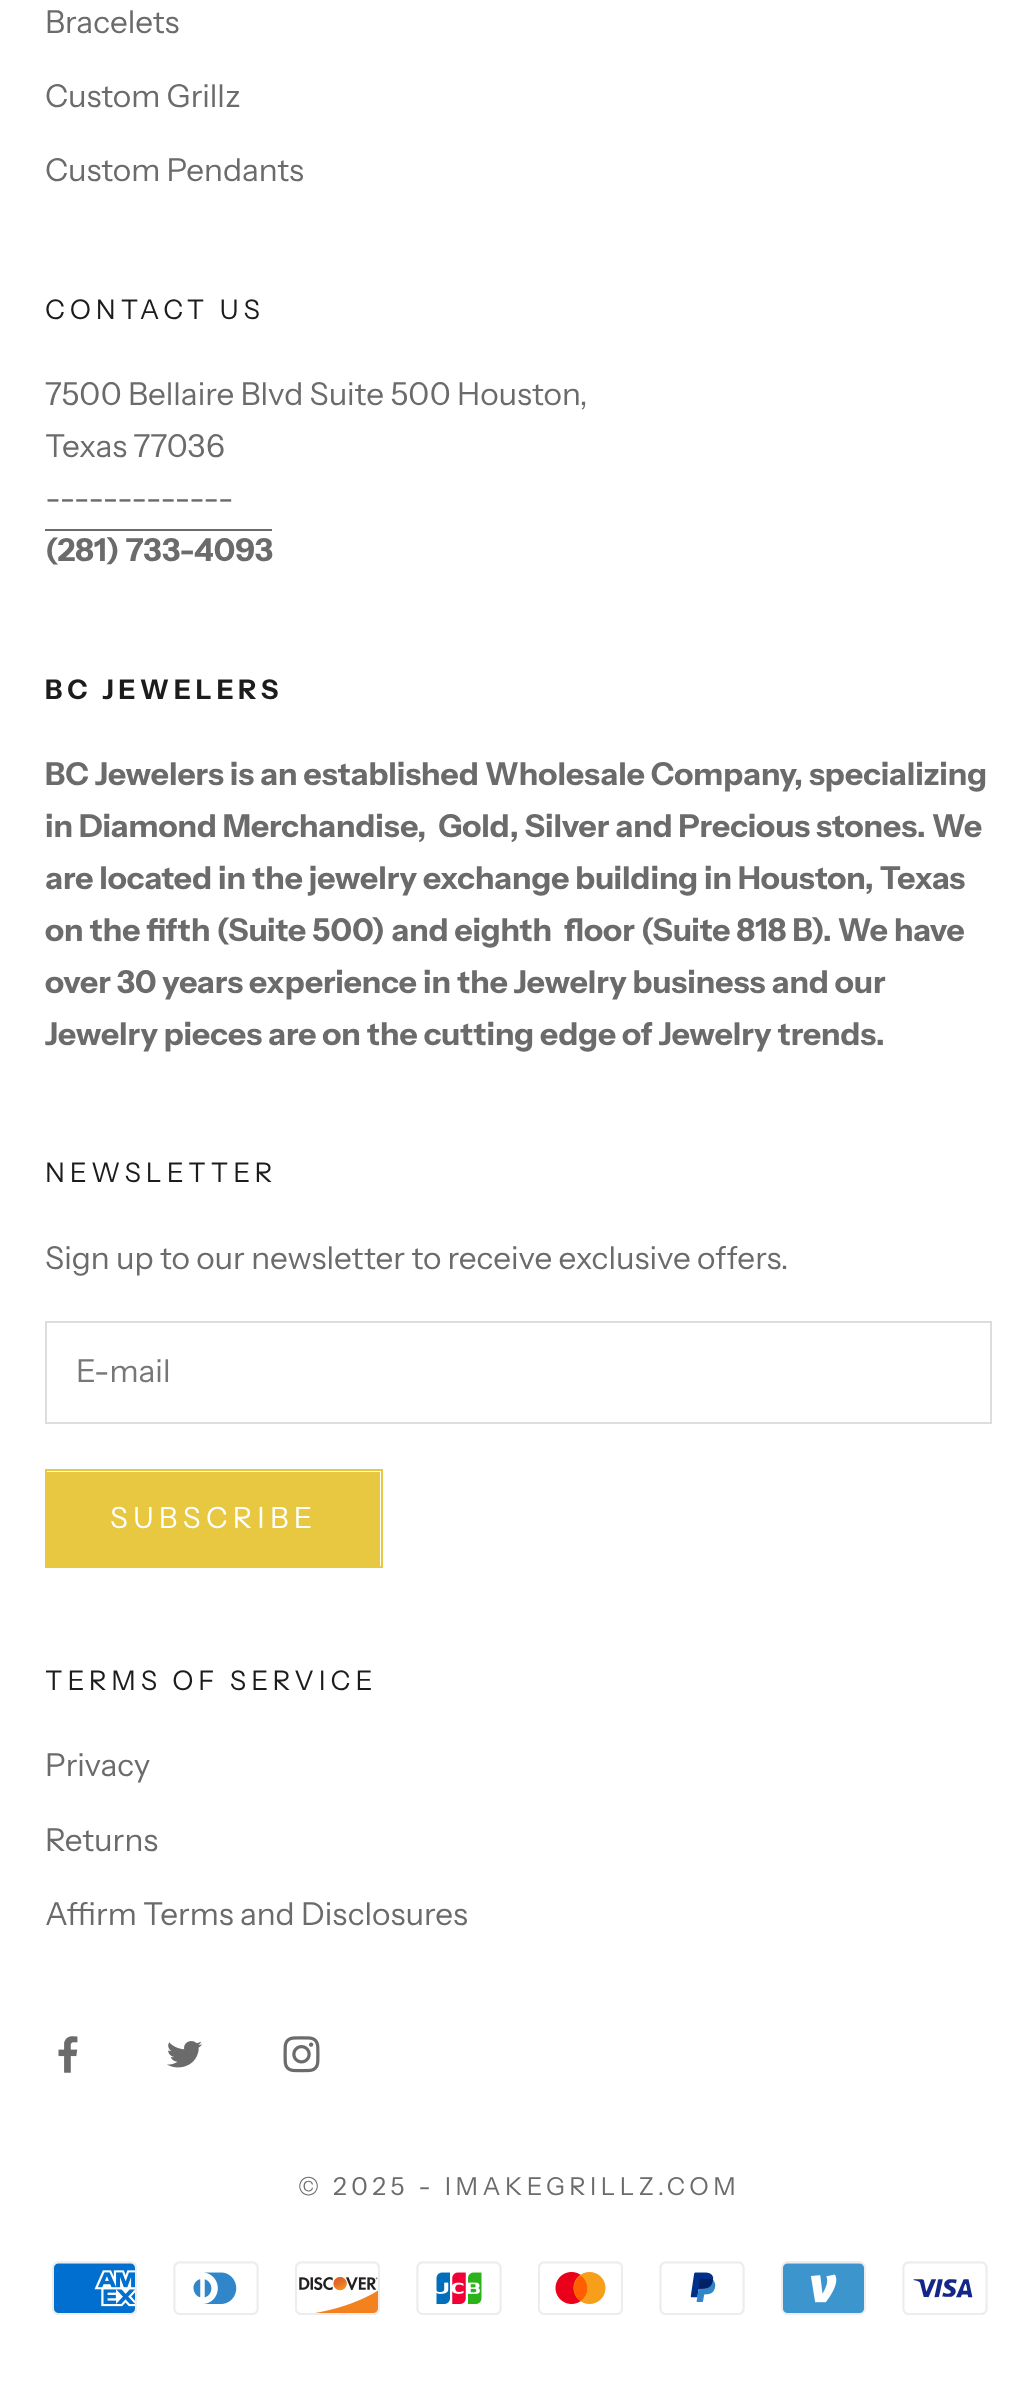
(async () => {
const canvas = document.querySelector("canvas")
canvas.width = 1036
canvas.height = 2404
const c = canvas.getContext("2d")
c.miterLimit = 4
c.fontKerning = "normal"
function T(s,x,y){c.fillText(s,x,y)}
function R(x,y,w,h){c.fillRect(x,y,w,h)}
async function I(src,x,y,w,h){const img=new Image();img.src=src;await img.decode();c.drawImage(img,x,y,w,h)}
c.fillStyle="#fff"
R(0,0,1036,2404)
c.font="31.5px Instrument Sans"
c.fillStyle="#6b6b6b"
T("Bracelets",45,33)
T("Custom Grillz",45,107)
T("Custom Pendants",45,181)
c.letterSpacing="4.9px"
c.font="27px Instrument Sans"
c.fillStyle="#1c1c1c"
T("CONTACT US",45,319)
c.letterSpacing="0px"
c.font="31.5px Instrument Sans"
c.fillStyle="#6b6b6b"
T("7500 Bellaire Blvd Suite 500 Houston,",45,405)
T("Texas 77036",45,457)
T("-------------",45,509)
c.font="bold 31.5px Instrument Sans"
T("(281) 733-4093",45,561)
R(45,529,227,2)
c.letterSpacing="4.9px"
c.font="bold 27px Instrument Sans"
c.fillStyle="#1c1c1c"
T("BC JEWELERS",45,699)
c.letterSpacing="0px"
c.font="bold 31.5px Instrument Sans"
c.fillStyle="#6b6b6b"
T("BC Jewelers is an established Wholesale Company, specializing",45,785)
T("in Diamond Merchandise,  Gold, Silver and Precious stones. We",45,837)
T("are located in the jewelry exchange building in Houston, Texas",45,889)
T("on the fifth (Suite 500) and eighth  floor (Suite 818 B). We have",45,941)
T("over 30 years experience in the Jewelry business and our",45,993)
T("Jewelry pieces are on the cutting edge of Jewelry trends.",45,1045)
c.letterSpacing="4.9px"
c.font="27px Instrument Sans"
c.fillStyle="#1c1c1c"
T("NEWSLETTER",45,1182)
c.letterSpacing="0px"
c.font="31.5px Instrument Sans"
c.fillStyle="#6b6b6b"
T("Sign up to our newsletter to receive exclusive offers.",45,1269)
c.strokeStyle="#ddd"
c.lineWidth=2
c.strokeRect(46,1322,945,101)
c.fillStyle="#777"
T("E-mail",76,1382)
c.fillStyle="#e8c841"
R(47,1472,333,94)
c.strokeStyle="#e8c841"
c.strokeRect(46,1470,336,97)
c.letterSpacing="5.25px"
c.font="29.25px Instrument Sans"
c.fillStyle="#fff"
T("SUBSCRIBE",110,1528)
c.letterSpacing="4.9px"
c.font="27px Instrument Sans"
c.fillStyle="#1c1c1c"
T("TERMS OF SERVICE",45,1690)
c.letterSpacing="0px"
c.font="31.5px Instrument Sans"
c.fillStyle="#6b6b6b"
T("Privacy",45,1776)
T("Returns",45,1851)
T("Affirm Terms and Disclosures",45,1925)
await I("1.png",58,2036,20,37)
await I("2.png",167,2041,36,27)
await I("3.png",283,2036,37,37)
c.letterSpacing="4.5px"
c.font="24.75px Instrument Sans"
T("© 2025 - IMAKEGRILLZ.COM",298,2195)
await I("4.png",52,2261,85,54)
await I("5.png",173,2261,86,54)
await I("6.png",295,2261,85,54)
await I("7.png",416,2261,86,54)
await I("8.png",538,2261,85,54)
await I("9.png",659,2261,86,54)
await I("10.png",781,2261,85,54)
await I("11.png",902,2261,86,54)
})()
